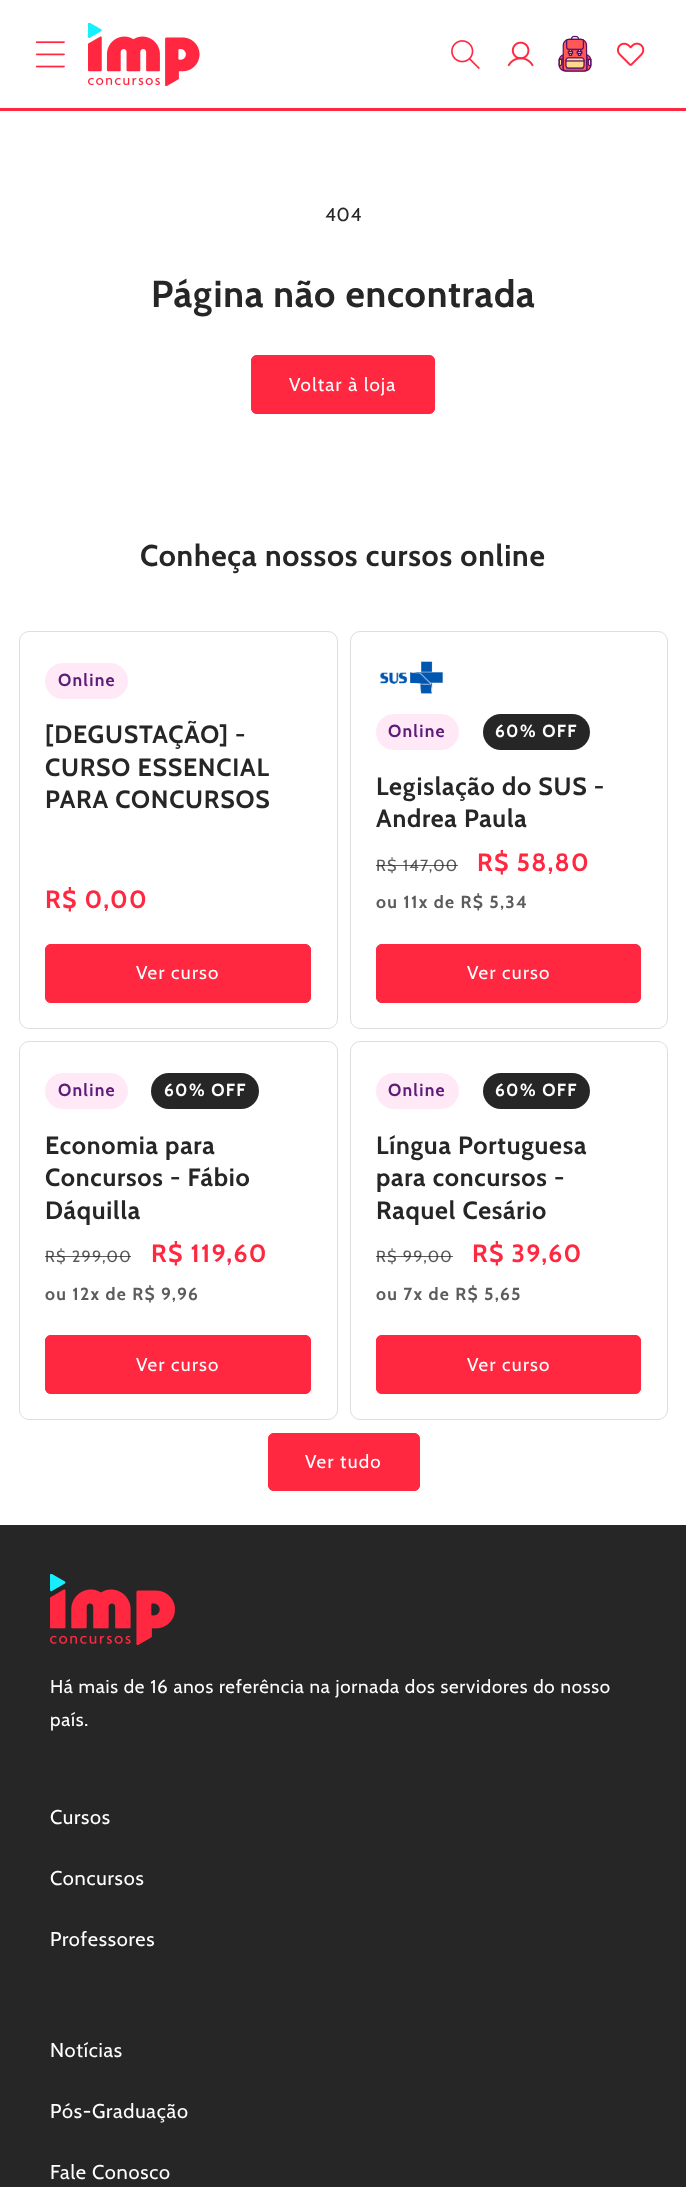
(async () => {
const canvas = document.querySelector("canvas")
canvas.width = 686
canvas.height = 2187
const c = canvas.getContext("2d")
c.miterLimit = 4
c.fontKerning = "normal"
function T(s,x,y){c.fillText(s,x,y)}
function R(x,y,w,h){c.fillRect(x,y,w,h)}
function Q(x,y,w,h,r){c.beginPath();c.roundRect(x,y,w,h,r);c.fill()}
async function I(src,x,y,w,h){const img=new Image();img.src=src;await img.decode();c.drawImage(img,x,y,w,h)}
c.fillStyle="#fff"
R(0,0,686,2187)
c.fillStyle="#ff2840"
R(0,108,686,3)
await I("1.png",35,41,30,27)
await I("2.png",88,23,112,63)
await I("3.png",451,40,29,29)
await I("4.png",507,41,27,26)
await I("5.png",558,35,34,37)
await I("6.png",617,42,28,24)
c.letterSpacing="0.75px"
c.font="18.75px Cabin"
c.fillStyle="#262626"
T("404",325,221)
c.font="bold 37.5px Cabin"
T("Página não encontrada",151,307)
c.fillStyle="#ff2840"
Q(251,355,184,59,6)
c.beginPath()
c.roundRect(251.5,355.5,183,58,5.5)
c.strokeStyle="#ff2840"
c.stroke()
c.letterSpacing="1.25px"
c.font="18.75px Cabin"
c.fillStyle="#fff"
T("Voltar à loja",289,391)
c.letterSpacing="0.75px"
c.font="bold 30px Cabin"
c.fillStyle="#262626"
T("Conheça nossos cursos online",140,566)
c.beginPath()
c.roundRect(19.5,631.5,318,397,9.5)
c.strokeStyle="#dedede"
c.stroke()
c.fillStyle="#ffe9f6"
Q(45,663,83,36,18)
c.letterSpacing="1.25px"
c.font="bold 17.5px Cabin"
c.fillStyle="#5d1c7a"
T("Online",58,686)
c.letterSpacing="0.75px"
c.font="bold 25px Cabin"
c.fillStyle="#262626"
T("[DEGUSTAÇÃO] -",45,743)
T("CURSO ESSENCIAL",45,776)
T("PARA CONCURSOS",45,808)
c.letterSpacing="1.25px"
c.fillStyle="#ff2840"
T("R$ 0,00",45,908)
Q(45,944,266,59,6)
c.beginPath()
c.roundRect(45.5,944.5,265,58,5.5)
c.strokeStyle="#ff2840"
c.stroke()
c.font="18.75px Cabin"
c.fillStyle="#fff"
T("Ver curso",136,979)
c.beginPath()
c.roundRect(350.5,631.5,317,397,9.5)
c.strokeStyle="#dedede"
c.stroke()
await I("7.png",379,661,65,33)
c.fillStyle="#ffe9f6"
Q(376,714,83,36,18)
c.font="bold 17.5px Cabin"
c.fillStyle="#5d1c7a"
T("Online",388,737)
c.fillStyle="#262626"
Q(483,714,107,36,18)
c.fillStyle="#fff"
T("60% OFF",495,737)
c.letterSpacing="0.75px"
c.font="bold 25px Cabin"
c.fillStyle="#262626"
T("Legislação do SUS -",376,795)
T("Andrea Paula",376,827)
c.letterSpacing="1.25px"
c.font="16.25px Cabin"
c.fillStyle="#5c5c5c"
T("R$ 147,00",376,871)
c.fillStyle="#262626bf"
R(376,865,82,1)
c.font="bold 25px Cabin"
c.fillStyle="#ff2840"
T("R$ 58,80",477,871)
c.font="bold 17.5px Cabin"
c.fillStyle="#5c5c5c"
T("ou 11x de R$ 5,34",376,908)
c.fillStyle="#ff2840"
Q(376,944,265,59,6)
c.beginPath()
c.roundRect(376.5,944.5,264,58,5.5)
c.strokeStyle="#ff2840"
c.stroke()
c.font="18.75px Cabin"
c.fillStyle="#fff"
T("Ver curso",467,979)
c.beginPath()
c.roundRect(19.5,1041.5,318,378,9.5)
c.strokeStyle="#dedede"
c.stroke()
c.fillStyle="#ffe9f6"
Q(45,1073,83,36,18)
c.font="bold 17.5px Cabin"
c.fillStyle="#5d1c7a"
T("Online",58,1096)
c.fillStyle="#262626"
Q(151,1073,108,36,18)
c.fillStyle="#fff"
T("60% OFF",164,1096)
c.letterSpacing="0.75px"
c.font="bold 25px Cabin"
c.fillStyle="#262626"
T("Economia para",45,1154)
T("Concursos - Fábio",45,1186)
T("Dáquilla",45,1219)
c.letterSpacing="1.25px"
c.font="16.25px Cabin"
c.fillStyle="#5c5c5c"
T("R$ 299,00",45,1262)
c.fillStyle="#262626bf"
R(45,1256,86,1)
c.font="bold 25px Cabin"
c.fillStyle="#ff2840"
T("R$ 119,60",151,1262)
c.font="bold 17.5px Cabin"
c.fillStyle="#5c5c5c"
T("ou 12x de R$ 9,96",45,1300)
c.fillStyle="#ff2840"
Q(45,1335,266,59,6)
c.beginPath()
c.roundRect(45.5,1335.5,265,58,5.5)
c.strokeStyle="#ff2840"
c.stroke()
c.font="18.75px Cabin"
c.fillStyle="#fff"
T("Ver curso",136,1371)
c.beginPath()
c.roundRect(350.5,1041.5,317,378,9.5)
c.strokeStyle="#dedede"
c.stroke()
c.fillStyle="#ffe9f6"
Q(376,1073,83,36,18)
c.font="bold 17.5px Cabin"
c.fillStyle="#5d1c7a"
T("Online",388,1096)
c.fillStyle="#262626"
Q(483,1073,107,36,18)
c.fillStyle="#fff"
T("60% OFF",495,1096)
c.letterSpacing="0.75px"
c.font="bold 25px Cabin"
c.fillStyle="#262626"
T("Língua Portuguesa",376,1154)
T("para concursos -",376,1186)
T("Raquel Cesário",376,1219)
c.letterSpacing="1.25px"
c.font="16.25px Cabin"
c.fillStyle="#5c5c5c"
T("R$ 99,00",376,1262)
c.fillStyle="#262626bf"
R(376,1256,77,1)
c.font="bold 25px Cabin"
c.fillStyle="#ff2840"
T("R$ 39,60",472,1262)
c.font="bold 17.5px Cabin"
c.fillStyle="#5c5c5c"
T("ou 7x de R$ 5,65",376,1300)
c.fillStyle="#ff2840"
Q(376,1335,265,59,6)
c.beginPath()
c.roundRect(376.5,1335.5,264,58,5.5)
c.strokeStyle="#ff2840"
c.stroke()
c.font="18.75px Cabin"
c.fillStyle="#fff"
T("Ver curso",467,1371)
c.fillStyle="#ff2840"
Q(268,1433,152,58,6)
c.beginPath()
c.roundRect(268.5,1433.5,151,57,5.5)
c.stroke()
c.fillStyle="#fff"
T("Ver tudo",305,1468)
c.fillStyle="#262626"
R(0,1525,686,662)
await I("8.png",50,1574,125,71)
c.letterSpacing="0.75px"
c.fillStyle="#fff"
T("Há mais de 16 anos referência na jornada dos servidores do nosso",50,1693)
T("país.",50,1726)
c.font="20px Cabin"
T("Cursos",50,1824)
T("Concursos",50,1885)
T("Professores",50,1946)
T("Notícias",50,2057)
T("Pós-Graduação",50,2118)
T("Fale Conosco",50,2179)
})()
